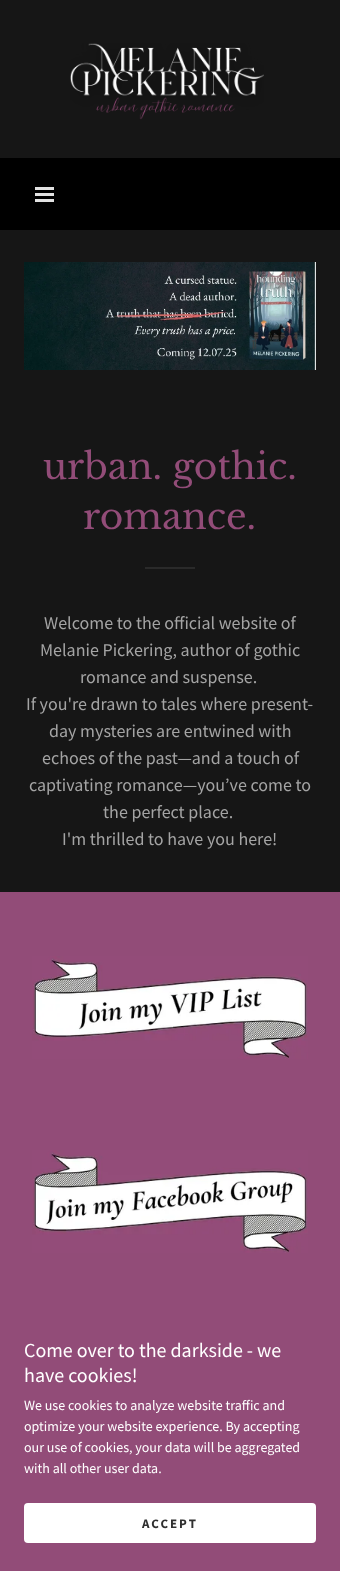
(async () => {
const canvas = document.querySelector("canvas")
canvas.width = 340
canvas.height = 1571
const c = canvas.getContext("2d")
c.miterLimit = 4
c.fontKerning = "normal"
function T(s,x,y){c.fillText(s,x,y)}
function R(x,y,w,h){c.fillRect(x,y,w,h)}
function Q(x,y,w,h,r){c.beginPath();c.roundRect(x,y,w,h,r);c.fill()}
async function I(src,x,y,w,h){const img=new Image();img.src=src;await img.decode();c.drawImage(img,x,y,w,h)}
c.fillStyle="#161616"
R(0,0,340,1571)
await I("1.png",70,43,194,77)
c.fillStyle="#000"
R(0,158,340,72)
c.fillStyle="#e2e2e2"
R(35,187,19,3)
R(35,193,19,3)
R(35,199,19,3)
await I("2.png",24,262,292,108)
c.font="36px Libre Baskerville"
c.fillStyle="#924c78"
T("urban. gothic.",43,479)
T("romance.",83,529)
c.fillStyle="#2a2a2a"
R(145,567,50,2)
c.font="18px Source Sans Pro"
c.fillStyle="#a4a4a4"
T("Welcome to the official website of",44,629)
T("Melanie Pickering, author of gothic",40,656)
T("romance and suspense.",80,683)
T("If you're drawn to tales where present-",26,710)
T("day mysteries are entwined with",49,737)
T("echoes of the past—and a touch of",42,764)
T("captivating romance—you’ve come to",29,791)
T("the perfect place.",103,818)
T("I'm thrilled to have you here!",62,845)
c.fillStyle="#924c78"
R(0,892,340,679)
await I("3.png",32,956,276,103)
await I("4.png",32,1150,276,103)
c.font="20px Source Sans Pro"
c.fillStyle="#fff"
T("Come over to the darkside - we",24,1357)
T("have cookies!",24,1382)
c.font="14px Source Sans Pro"
T("We use cookies to analyze website traffic and",24,1410)
T("optimize your website experience. By accepting",24,1431)
T("our use of cookies, your data will be aggregated",24,1452)
T("with all other user data.",24,1473)
Q(24,1503,292,40,4)
c.letterSpacing="2px"
c.font="bold 13px Source Sans Pro"
c.fillStyle="#303030"
T("ACCEPT",142,1528)
})()
